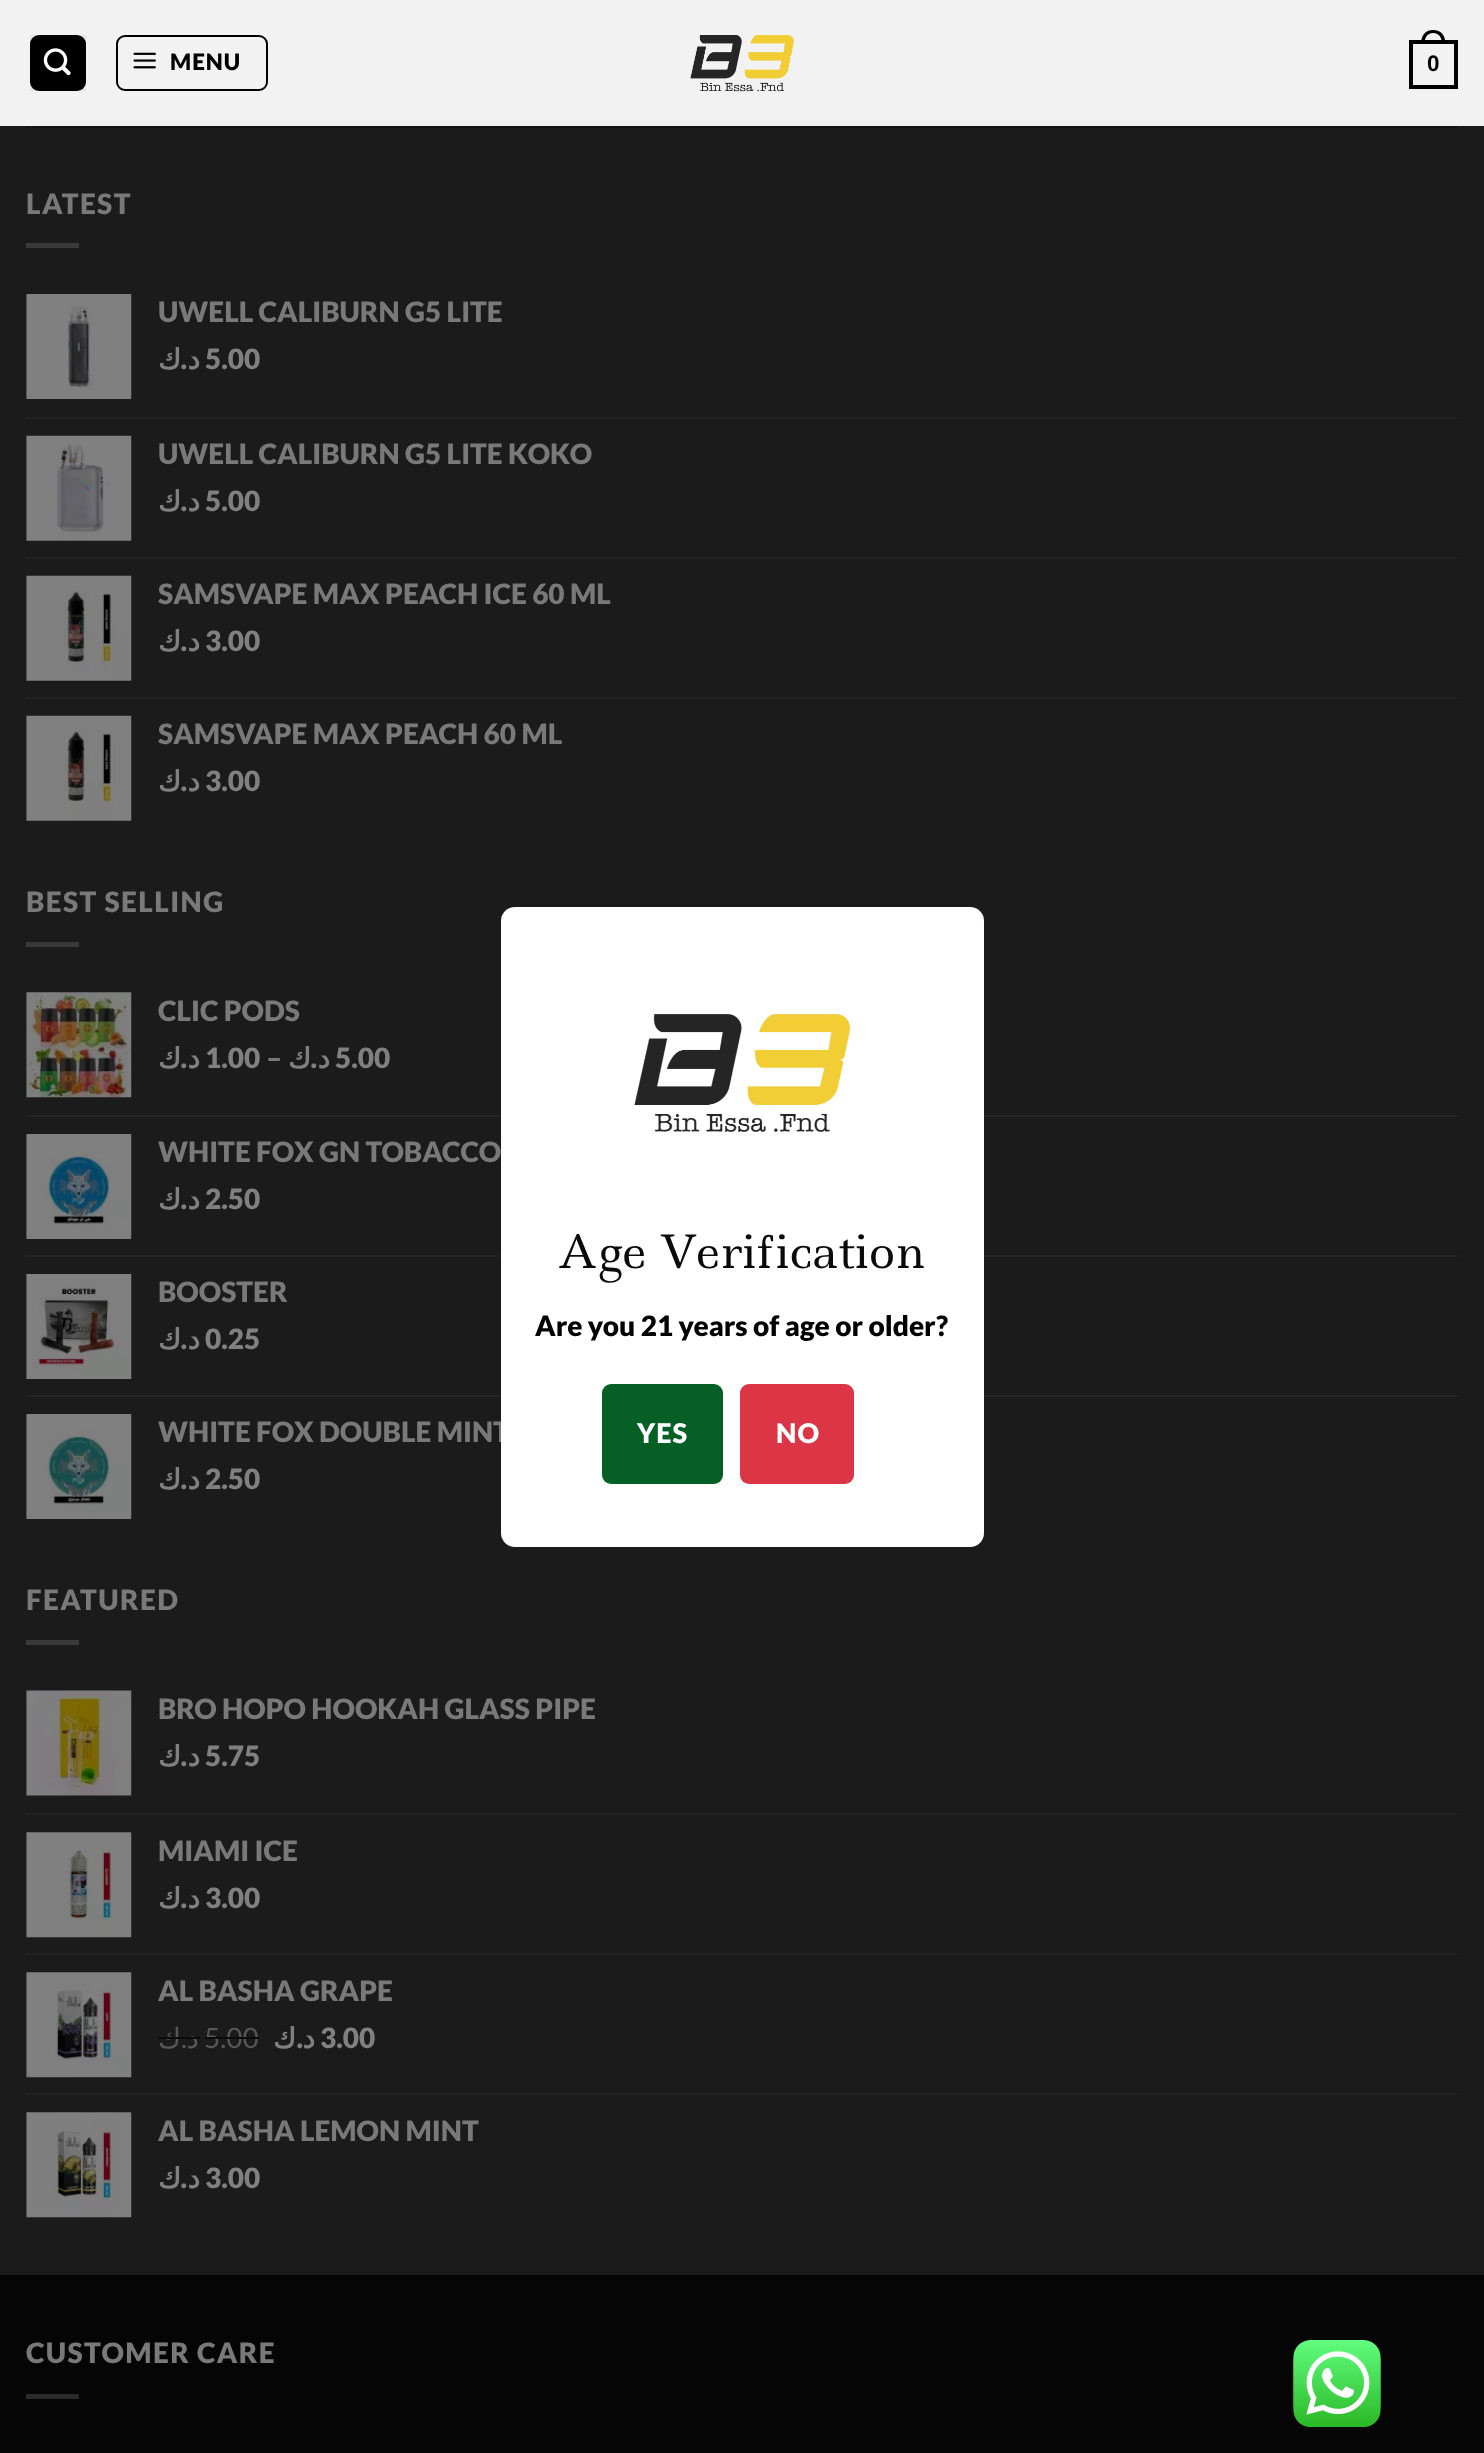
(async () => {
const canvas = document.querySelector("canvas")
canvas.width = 1484
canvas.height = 2453
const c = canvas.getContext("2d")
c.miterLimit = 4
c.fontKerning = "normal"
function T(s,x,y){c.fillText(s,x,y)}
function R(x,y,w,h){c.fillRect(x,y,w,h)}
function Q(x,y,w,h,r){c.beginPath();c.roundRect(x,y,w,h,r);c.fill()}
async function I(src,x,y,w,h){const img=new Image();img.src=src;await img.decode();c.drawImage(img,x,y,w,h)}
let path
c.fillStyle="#1b1b1b"
R(0,0,1484,2453)
c.fillStyle="#f2f2f2"
R(0,0,1484,126)
c.fillStyle="#000"
Q(30,35,56,56,9)
c.strokeStyle="#0000000d"
c.lineWidth=2
c.strokeRect(31,36,54,54)
await I("1.png",43,48,28,28)
c.beginPath()
c.roundRect(117,36,150,54,8)
c.strokeStyle="#000"
c.stroke()
await I("2.png",133,52,23,17)
c.letterSpacing="1px"
c.font="900 22.5px Lato"
T("MENU",170,70)
await I("3.png",690,35,104,57)
c.lineWidth=4
c.strokeRect(1411,42,45,45)
path = new Path2D("M1433 30c8.5 0 12.5 6 12.5 14h-24.5c0-8 4-14 12-14zm0 3c6.5 0 9 5 9 11h-17.5c0-6 2.5-11 8.5-11z")
c.fill(path,"evenodd")
c.letterSpacing="0px"
c.font="bold 22.5px Liberation Sans"
T("0",1427,71)
c.fillStyle="#151515"
R(26,126,1432,2)
c.letterSpacing="1.4px"
c.font="900 28px Lato"
c.fillStyle="#797979"
T("LATEST",26,214)
c.fillStyle="#393939"
R(26,243,53,5)
await I("4.png",26,294,106,105)
c.letterSpacing="0px"
c.fillStyle="#797979"
T("UWELL CALIBURN G5 LITE",158,322)
c.direction="rtl"
c.font="bold 28px DejaVu Sans"
c.fillStyle="#808080"
T("ك",181,369)
c.font="900 28px Lato"
T(".",187,369)
c.font="bold 28px DejaVu Sans"
T("د",200,369)
c.direction="ltr"
c.font="900 28px Lato"
T("5.00",205,369)
c.fillStyle="#232323"
R(26,417,1432,2)
await I("5.png",26,435,106,106)
c.fillStyle="#797979"
T("UWELL CALIBURN G5 LITE KOKO",158,464)
c.direction="rtl"
c.font="bold 28px DejaVu Sans"
c.fillStyle="#808080"
T("ك",181,511)
c.font="900 28px Lato"
T(".",187,511)
c.font="bold 28px DejaVu Sans"
T("د",200,511)
c.direction="ltr"
c.font="900 28px Lato"
T("5.00",205,511)
c.fillStyle="#232323"
R(26,557,1432,2)
await I("6.png",26,575,106,106)
c.fillStyle="#797979"
T("SAMSVAPE MAX PEACH ICE 60 ML",158,604)
c.direction="rtl"
c.font="bold 28px DejaVu Sans"
c.fillStyle="#808080"
T("ك",181,651)
c.font="900 28px Lato"
T(".",187,651)
c.font="bold 28px DejaVu Sans"
T("د",200,651)
c.direction="ltr"
c.font="900 28px Lato"
T("3.00",205,651)
c.fillStyle="#232323"
R(26,697,1432,2)
await I("7.png",26,715,106,106)
c.fillStyle="#797979"
T("SAMSVAPE MAX PEACH 60 ML",158,744)
c.direction="rtl"
c.font="bold 28px DejaVu Sans"
c.fillStyle="#808080"
T("ك",181,791)
c.font="900 28px Lato"
T(".",187,791)
c.font="bold 28px DejaVu Sans"
T("د",200,791)
c.direction="ltr"
c.font="900 28px Lato"
T("3.00",205,791)
c.letterSpacing="1.4px"
c.fillStyle="#797979"
T("BEST SELLING",26,912)
c.fillStyle="#393939"
R(26,942,53,5)
await I("8.png",26,992,106,106)
c.letterSpacing="0px"
c.fillStyle="#797979"
T("CLIC PODS",158,1021)
c.direction="rtl"
c.font="bold 28px DejaVu Sans"
c.fillStyle="#808080"
T("ك",181,1068)
T("د",200,1068)
c.direction="ltr"
c.font="900 28px Lato"
T("1.00",205,1068)
c.fillStyle="#797979"
T("–",266,1068)
c.direction="rtl"
c.font="bold 28px DejaVu Sans"
c.fillStyle="#808080"
T("ك",311,1068)
T("د",330,1068)
c.direction="ltr"
c.font="900 28px Lato"
T("5.00",335,1068)
c.direction="rtl"
T(".",187,1068)
T(".",317,1068)
c.fillStyle="#232323"
R(26,1115,1432,2)
await I("9.png",26,1134,106,105)
c.direction="ltr"
c.fillStyle="#797979"
T("WHITE FOX GN TOBACCO",158,1162)
c.direction="rtl"
c.font="bold 28px DejaVu Sans"
c.fillStyle="#808080"
T("ك",181,1209)
c.font="900 28px Lato"
T(".",187,1209)
c.font="bold 28px DejaVu Sans"
T("د",200,1209)
c.direction="ltr"
c.font="900 28px Lato"
T("2.50",205,1209)
c.fillStyle="#232323"
R(26,1255,1432,2)
await I("10.png",26,1274,106,105)
c.fillStyle="#797979"
T("BOOSTER",158,1302)
c.direction="rtl"
c.font="bold 28px DejaVu Sans"
c.fillStyle="#808080"
T("ك",181,1349)
c.font="900 28px Lato"
T(".",187,1349)
c.font="bold 28px DejaVu Sans"
T("د",200,1349)
c.direction="ltr"
c.font="900 28px Lato"
T("0.25",205,1349)
c.fillStyle="#232323"
R(26,1395,1432,2)
await I("11.png",26,1414,106,105)
c.fillStyle="#797979"
T("WHITE FOX DOUBLE MINT",158,1442)
c.direction="rtl"
c.font="bold 28px DejaVu Sans"
c.fillStyle="#808080"
T("ك",181,1489)
c.font="900 28px Lato"
T(".",187,1489)
c.font="bold 28px DejaVu Sans"
T("د",200,1489)
c.direction="ltr"
c.font="900 28px Lato"
T("2.50",205,1489)
c.letterSpacing="1.4px"
c.fillStyle="#797979"
T("FEATURED",26,1610)
c.fillStyle="#393939"
R(26,1640,53,5)
await I("12.png",26,1690,106,106)
c.letterSpacing="0px"
c.fillStyle="#797979"
T("BRO HOPO HOOKAH GLASS PIPE",158,1719)
c.direction="rtl"
c.font="bold 28px DejaVu Sans"
c.fillStyle="#808080"
T("ك",181,1766)
c.font="900 28px Lato"
T(".",187,1766)
c.font="bold 28px DejaVu Sans"
T("د",200,1766)
c.direction="ltr"
c.font="900 28px Lato"
T("5.75",205,1766)
c.fillStyle="#232323"
R(26,1813,1432,2)
await I("13.png",26,1832,106,106)
c.fillStyle="#797979"
T("MIAMI ICE",158,1861)
c.direction="rtl"
c.font="bold 28px DejaVu Sans"
c.fillStyle="#808080"
T("ك",181,1908)
c.font="900 28px Lato"
T(".",187,1908)
c.font="bold 28px DejaVu Sans"
T("د",200,1908)
c.direction="ltr"
c.font="900 28px Lato"
T("3.00",205,1908)
c.fillStyle="#232323"
R(26,1953,1432,2)
await I("14.png",26,1972,106,106)
c.fillStyle="#797979"
T("AL BASHA GRAPE",158,2001)
c.direction="rtl"
c.font="28px DejaVu Sans"
c.fillStyle="#575757"
T("ك",181,2048)
T("د",199,2048)
c.fillStyle="#0b0b0b"
R(158,2037,42,2)
c.font="28px Lato"
c.fillStyle="#575757"
T(".",187,2048)
c.direction="ltr"
T("5.00",204,2048)
c.fillStyle="#0b0b0b"
R(205,2037,54,2)
c.direction="rtl"
c.font="bold 28px DejaVu Sans"
c.fillStyle="#808080"
T("ك",296,2048)
c.font="900 28px Lato"
T(".",303,2048)
c.font="bold 28px DejaVu Sans"
T("د",315,2048)
c.direction="ltr"
c.font="900 28px Lato"
T("3.00",320,2048)
c.fillStyle="#232323"
R(26,2093,1432,2)
await I("15.png",26,2112,106,106)
c.fillStyle="#797979"
T("AL BASHA LEMON MINT",158,2141)
c.direction="rtl"
c.font="bold 28px DejaVu Sans"
c.fillStyle="#808080"
T("ك",181,2188)
c.font="900 28px Lato"
T(".",187,2188)
c.font="bold 28px DejaVu Sans"
T("د",200,2188)
c.direction="ltr"
c.font="900 28px Lato"
T("3.00",205,2188)
c.fillStyle="#050505"
R(0,2275,1484,178)
c.letterSpacing="1.4px"
c.fillStyle="#797979"
T("CUSTOMER CARE",26,2363)
c.fillStyle="#2a2a2a"
R(26,2394,53,5)
c.fillStyle="#fff"
Q(501,907,483,640,14)
await I("16.png",634,1014,217,118)
c.letterSpacing="0px"
c.font="44.75px Ledger"
c.fillStyle="#0a0a0a"
T("Age Verification",557,1268)
c.font="900 28px Lato"
c.fillStyle="#000"
T("Are you 21 years of age or older?",535,1336)
c.fillStyle="#066026"
Q(602,1384,121,100,9)
c.letterSpacing="1px"
c.font="900 27px Lato"
c.fillStyle="#fff"
T("YES",637,1443)
c.fillStyle="#dc3545"
Q(740,1384,114,100,9)
c.fillStyle="#fff"
T("NO",776,1443)
await I("17.png",1293,2340,88,87)
})()
